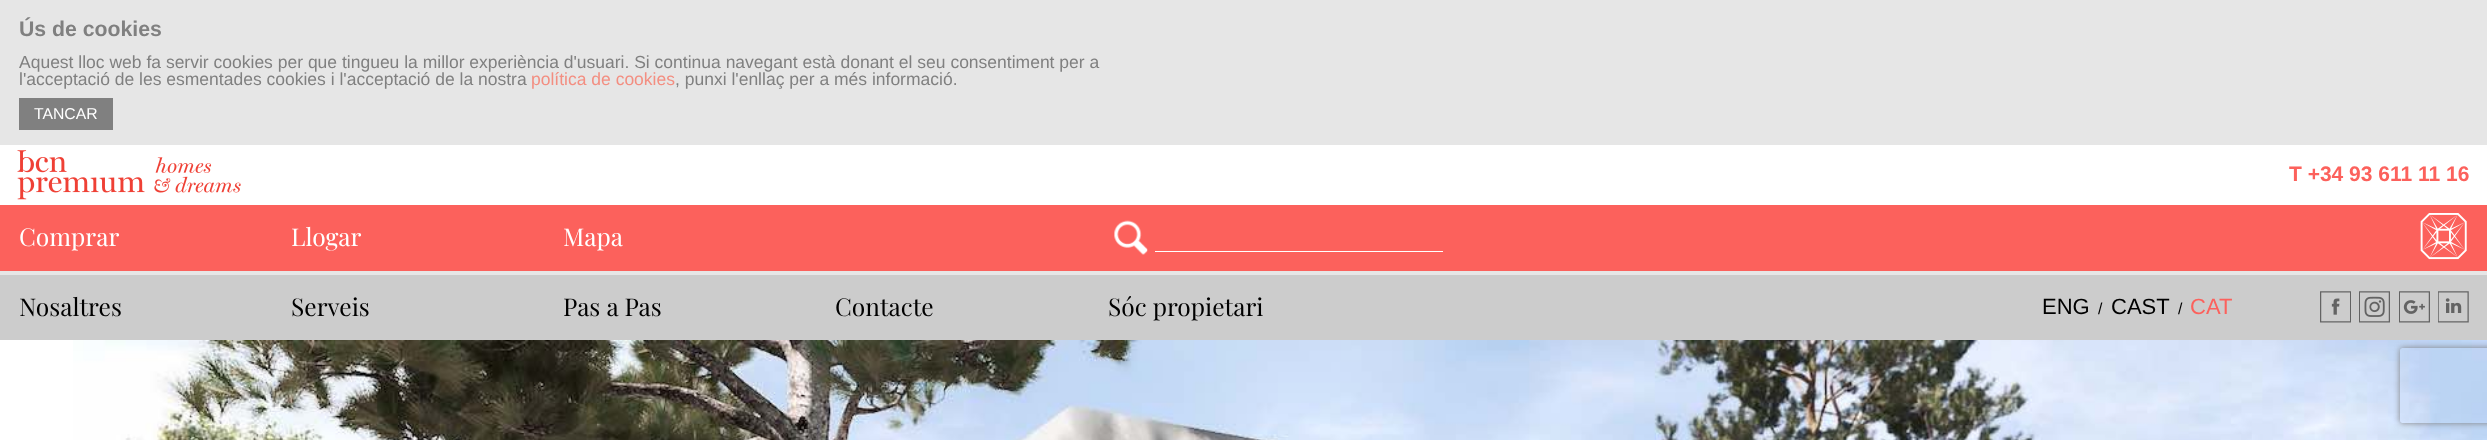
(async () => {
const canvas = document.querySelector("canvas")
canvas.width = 2487
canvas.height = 440
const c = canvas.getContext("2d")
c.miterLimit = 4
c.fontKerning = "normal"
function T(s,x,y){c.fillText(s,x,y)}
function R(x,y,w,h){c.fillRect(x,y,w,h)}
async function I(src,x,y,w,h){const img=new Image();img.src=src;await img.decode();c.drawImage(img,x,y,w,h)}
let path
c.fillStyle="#fff"
R(0,0,2487,440)
c.fillStyle="#e6e6e6"
R(0,0,2487,145)
c.font="bold 21.25px Liberation Sans"
c.fillStyle="#808080"
T("Ús de cookies",19,36)
c.font="17.5px Liberation Sans"
T("Aquest lloc web fa servir cookies per que tingueu la millor experiència d'usuari. Si continua navegant està donant el seu consentiment per a",19,68)
T("l'acceptació de les esmentades cookies i l'acceptació de la nostra",19,85)
c.fillStyle="#f38e81"
T("política de cookies",531,85)
c.fillStyle="#808080"
T(", punxi l'enllaç per a més informació.",675,85)
R(19,98,94,32)
c.font="15.75px Liberation Sans"
c.fillStyle="#fff"
T("TANCAR",34,119)
await I("1.png",17,150,224,50)
c.font="bold 21px Liberation Sans"
c.fillStyle="#fc615c"
T("T +34 93 611 11 16",2289,181)
R(0,205,2487,66)
c.font="24.5px Playfair Display"
c.fillStyle="#fff"
T("Comprar",19,246)
T("Llogar",291,246)
T("Mapa",563,246)
await I("2.png",1114,220,34,35)
R(1155,251,288,1)
await I("3.png",2420,213,47,47)
c.fillStyle="#ccc"
R(0,275,2487,65)
c.fillStyle="#e6e6e6"
R(0,271,2487,4)
c.fillStyle="#000"
T("Nosaltres",19,316)
T("Serveis",291,316)
T("Pas a Pas",563,316)
T("Contacte",835,316)
T("Sóc propietari",1108,316)
c.font="22px Liberation Sans"
T("ENG",2042,314)
c.font="15.75px Liberation Sans"
T("/",2098,314)
c.font="22px Liberation Sans"
T("CAST",2111,314)
c.font="15.75px Liberation Sans"
T("/",2178,314)
c.font="22px Liberation Sans"
c.fillStyle="#fc615c"
T("CAT",2190,314)
await I("4.png",2320,291,31,32)
await I("5.png",2359,291,31,32)
await I("6.png",2399,291,31,32)
await I("7.png",2438,291,31,32)
await I("8.png",73,340,2414,100)
c.save()
path = new Path2D("M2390 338h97v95h-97zm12.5 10h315c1.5 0 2.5 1 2.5 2.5v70c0 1.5-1 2.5-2.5 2.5h-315c-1.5 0-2.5-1-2.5-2.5v-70c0-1.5 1-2.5 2.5-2.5z")
c.clip(path,"evenodd")
c.fillStyle="#808080"
c.filter="blur(3px)"
c.beginPath()
c.roundRect(2400,348,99,75,2.5)
c.fill()
c.filter="none"
c.restore()
})()
